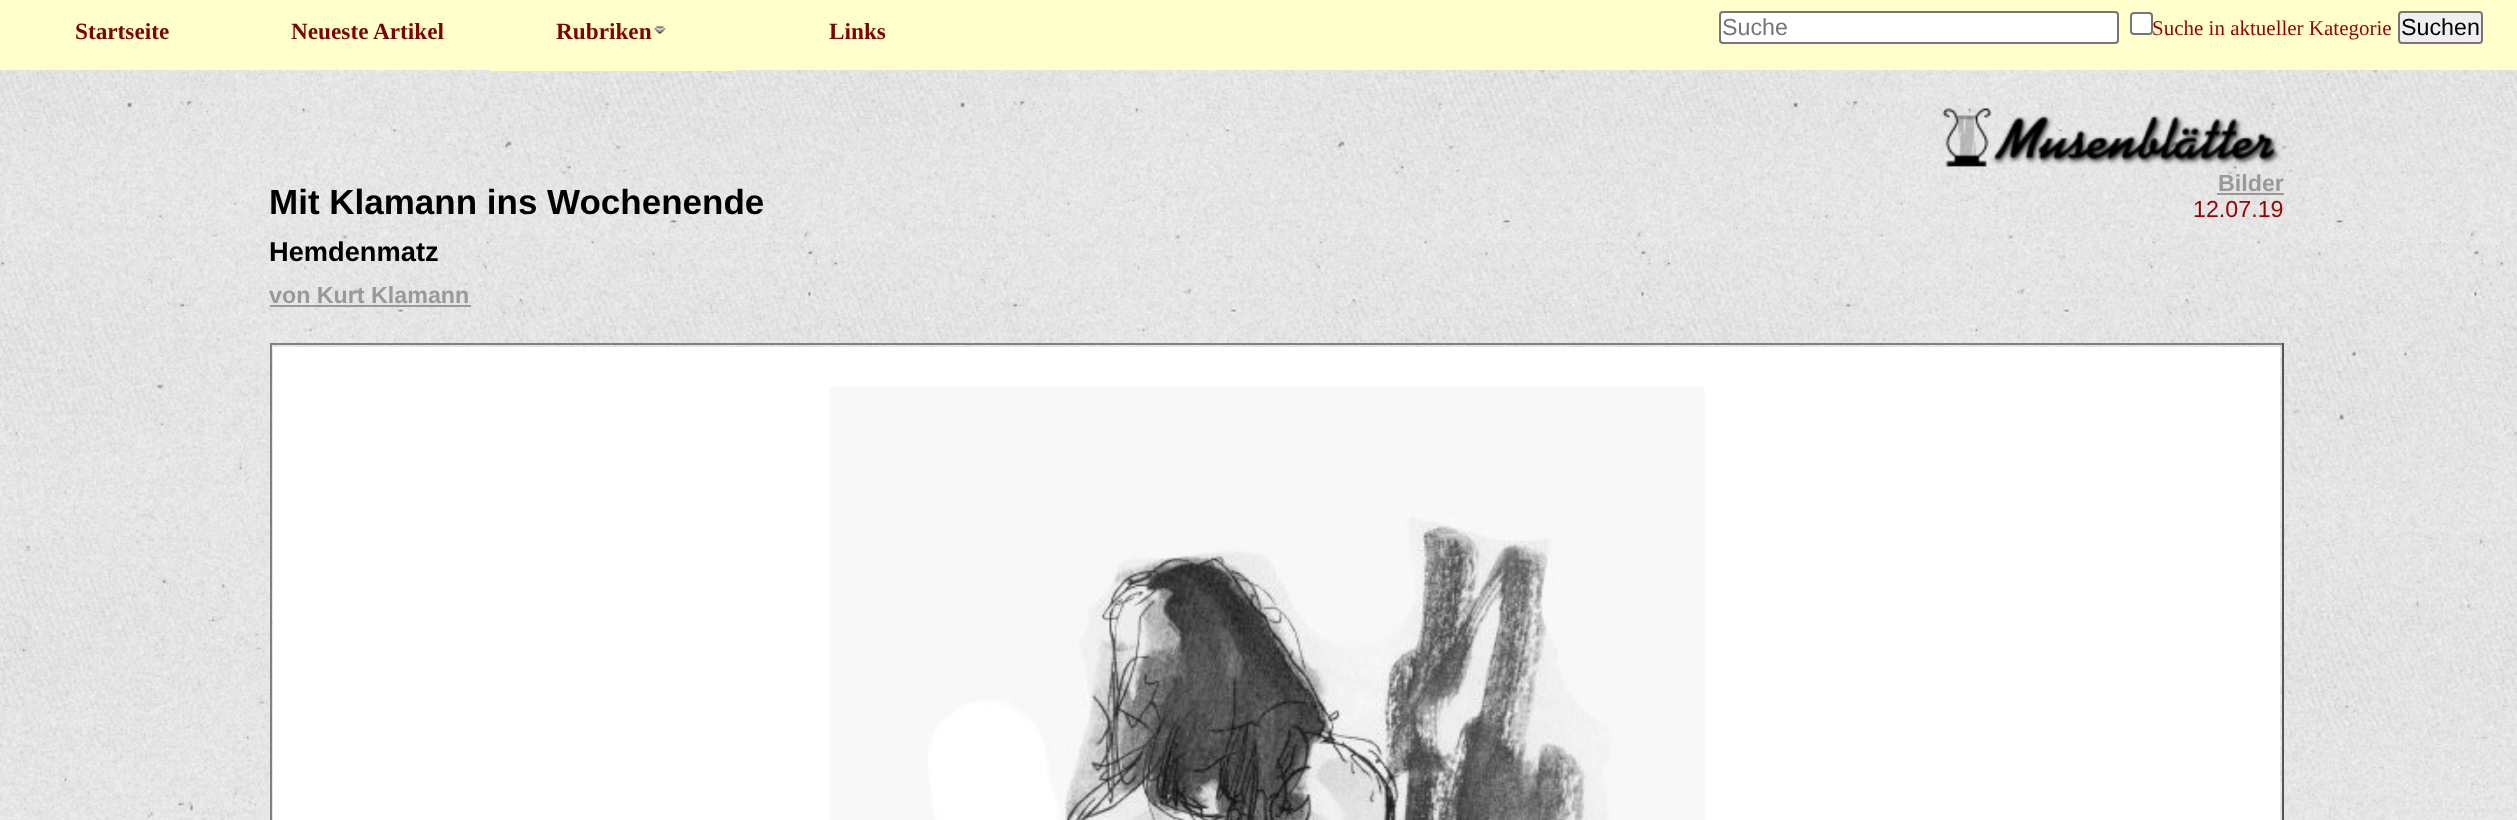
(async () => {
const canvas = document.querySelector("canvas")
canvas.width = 2517
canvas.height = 820
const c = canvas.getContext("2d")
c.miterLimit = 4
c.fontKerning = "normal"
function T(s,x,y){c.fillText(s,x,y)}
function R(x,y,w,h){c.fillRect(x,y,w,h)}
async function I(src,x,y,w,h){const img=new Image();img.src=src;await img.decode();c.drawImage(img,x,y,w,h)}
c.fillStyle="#fff"
R(0,0,2517,820)
await I("1.png",0,70,2517,750)
c.fillStyle="#ffc"
R(0,0,2517,70)
c.font="bold 23.25px Liberation Serif"
c.fillStyle="#800000"
T("Startseite",75,39)
T("Neueste Artikel",291,39)
T("Rubriken",556,39)
await I("2.png",654,25,12,9)
c.fillStyle="#ffc"
R(490,70,245,1)
c.fillStyle="#800000"
T("Links",829,39)
c.fillStyle="#fff"
c.beginPath()
c.roundRect(1720,12,398,31,3)
c.fill()
c.strokeStyle="#767676"
c.lineWidth=2
c.stroke()
c.font="23.25px Liberation Sans"
c.fillStyle="#757575"
T("Suche",1722,35)
c.fillStyle="#fff"
c.beginPath()
c.roundRect(2131,13,21,21,3)
c.fill()
c.stroke()
c.font="21px Liberation Serif"
c.fillStyle="#900"
T("Suche in aktueller Kategorie",2152,35)
c.fillStyle="#efefef"
c.beginPath()
c.roundRect(2399,12,83,31,3)
c.fill()
c.stroke()
c.font="23.25px Liberation Sans"
c.fillStyle="#000"
T("Suchen",2401,35)
c.font="bold 35px Liberation Sans"
T("Mit Klamann ins Wochenende",269,214)
c.font="bold 27.25px Liberation Sans"
T("Hemdenmatz",269,261)
c.font="bold 23.25px Liberation Sans"
c.fillStyle="#999"
T("von Kurt Klamann",269,303)
R(270,305,201,2)
await I("3.png",1942,108,339,59)
T("Bilder",2218,191)
R(2217,193,67,2)
c.font="23.25px Liberation Sans"
c.fillStyle="#900"
T("12.07.19",2193,217)
c.fillStyle="#808080"
R(270,343,2014,2)
c.fillStyle="#555"
R(2282,343,2,477)
c.fillStyle="#808080"
R(270,343,2,477)
c.fillStyle="#fff"
R(273,347,2007,473)
await I("4.png",829,387,876,433)
})()
